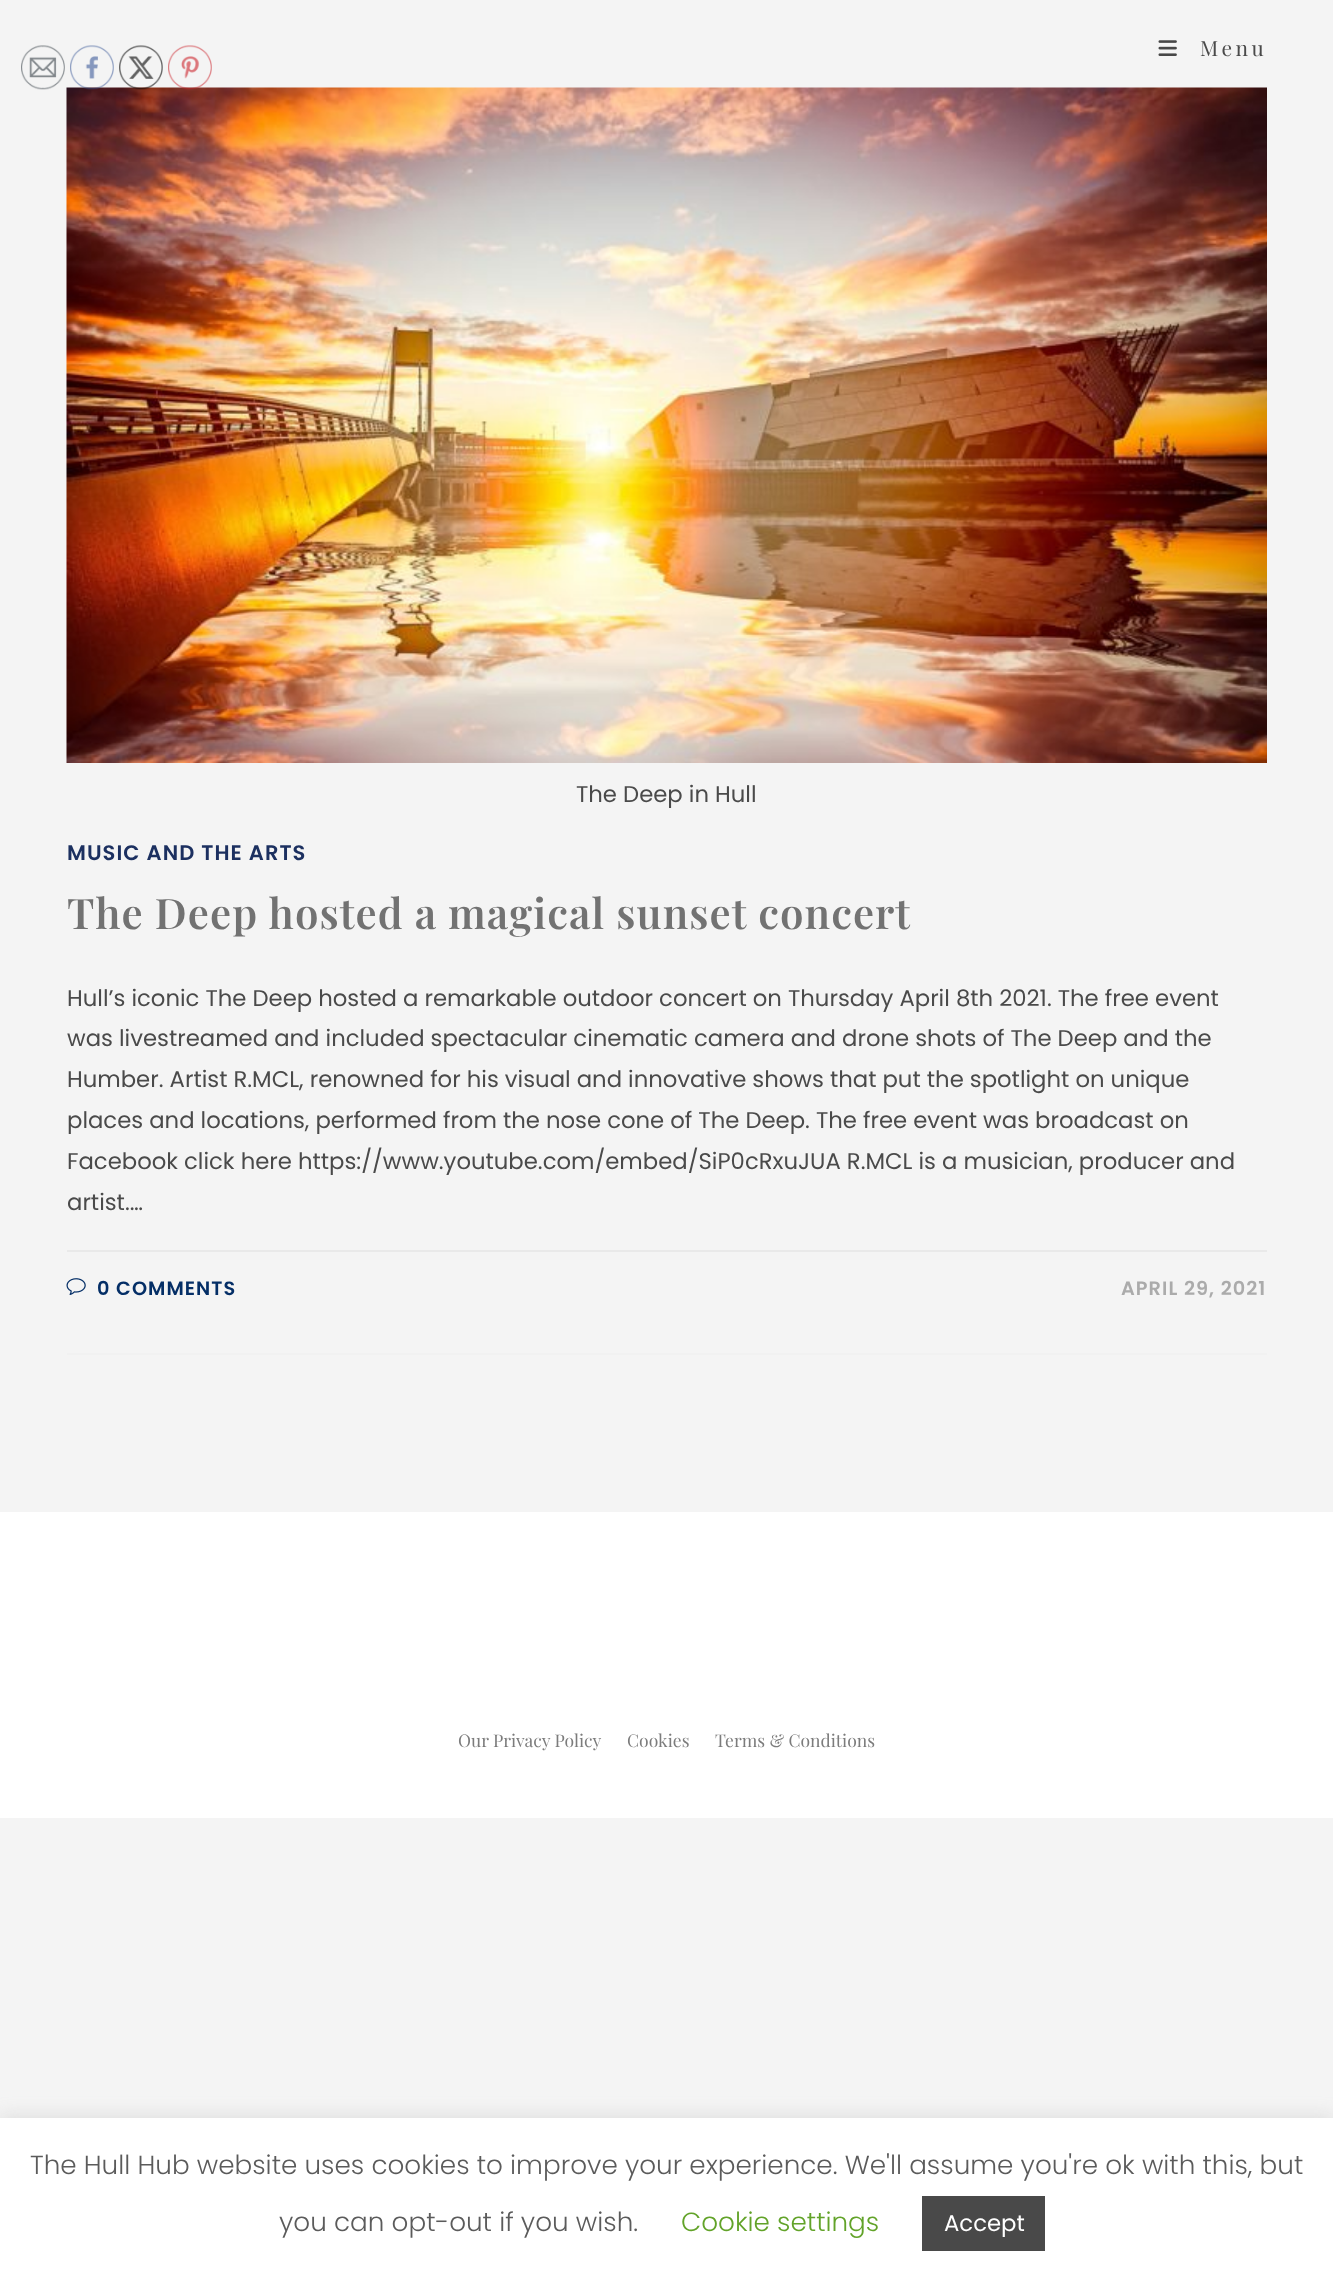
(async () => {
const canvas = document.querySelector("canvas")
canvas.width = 1333
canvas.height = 2280
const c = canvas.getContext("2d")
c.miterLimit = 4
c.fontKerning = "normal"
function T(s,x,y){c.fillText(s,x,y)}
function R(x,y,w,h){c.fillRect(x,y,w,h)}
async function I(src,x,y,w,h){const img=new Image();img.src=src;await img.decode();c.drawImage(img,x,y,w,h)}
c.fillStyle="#f4f4f4"
R(0,0,1333,2280)
await I("1.png",1158,40,19,16)
c.letterSpacing="3.5px"
c.font="21px Playfair Display"
c.fillStyle="#4a4a4a"
T("Menu",1200,56)
c.fillStyle="#f1f1f1"
R(67,1353,1200,2)
await I("2.png",66,87,1201,676)
c.letterSpacing="0px"
c.font="22.75px Poppins"
c.fillStyle="#4a4a4a"
T("The Deep in Hull",576,802)
c.letterSpacing="1.05px"
c.font="600 21px Poppins"
c.fillStyle="#1c3060"
T("MUSIC AND THE ARTS",67,860)
c.font="600 42px Playfair Display"
c.fillStyle="#727272"
T("The Deep hosted a magical sunset concert",67,929)
c.letterSpacing="0px"
c.font="22.75px Poppins"
c.fillStyle="#4a4a4a"
T("Hull’s iconic The Deep hosted a remarkable outdoor concert on Thursday April 8th 2021. The free event",67,1006)
T("was livestreamed and included spectacular cinematic camera and drone shots of The Deep and the",67,1046)
T("Humber. Artist R.MCL, renowned for his visual and innovative shows that put the spotlight on unique",67,1087)
T("places and locations, performed from the nose cone of The Deep. The free event was broadcast on",67,1128)
T("Facebook click here https://www.youtube.com/embed/SiP0cRxuJUA R.MCL is a musician, producer and",67,1169)
T("artist.…",67,1210)
c.fillStyle="#e9e9e9"
R(67,1250,1200,2)
await I("3.png",66,1278,20,17)
c.letterSpacing="1.05px"
c.font="600 19.25px Poppins"
c.fillStyle="#042e66"
T("0 COMMENTS",97,1295)
c.fillStyle="#ababab"
T("APRIL 29, 2021",1121,1295)
c.fillStyle="#fff"
R(0,1512,1333,306)
c.letterSpacing="0px"
c.font="17.5px Playfair Display"
c.fillStyle="#7c7c7c"
T("Our Privacy Policy",458,1747)
T("Cookies",627,1747)
T("Terms & Conditions",715,1747)
await I("4.png",21,45,44,45)
await I("5.png",70,45,44,45)
await I("6.png",119,45,44,45)
await I("7.png",168,45,44,45)
c.fillStyle="#acabab4d"
c.filter="blur(9px)"
c.beginPath()
c.rect(0,2116,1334,163)
c.fill()
c.filter="none"
c.fillStyle="#fff"
R(0,2118,1333,162)
c.font="300 26.25px Poppins"
c.fillStyle="#5b5b5b"
T("The Hull Hub website uses cookies to improve your experience. We'll assume you're ok with this, but",30,2174)
T("you can opt-out if you wish.",279,2231)
c.fillStyle="#62a329"
T("Cookie settings",681,2231)
c.fillStyle="#494949"
R(922,2196,123,55)
c.font="22.75px Poppins"
c.fillStyle="#fff"
T("Accept",944,2231)
})()
